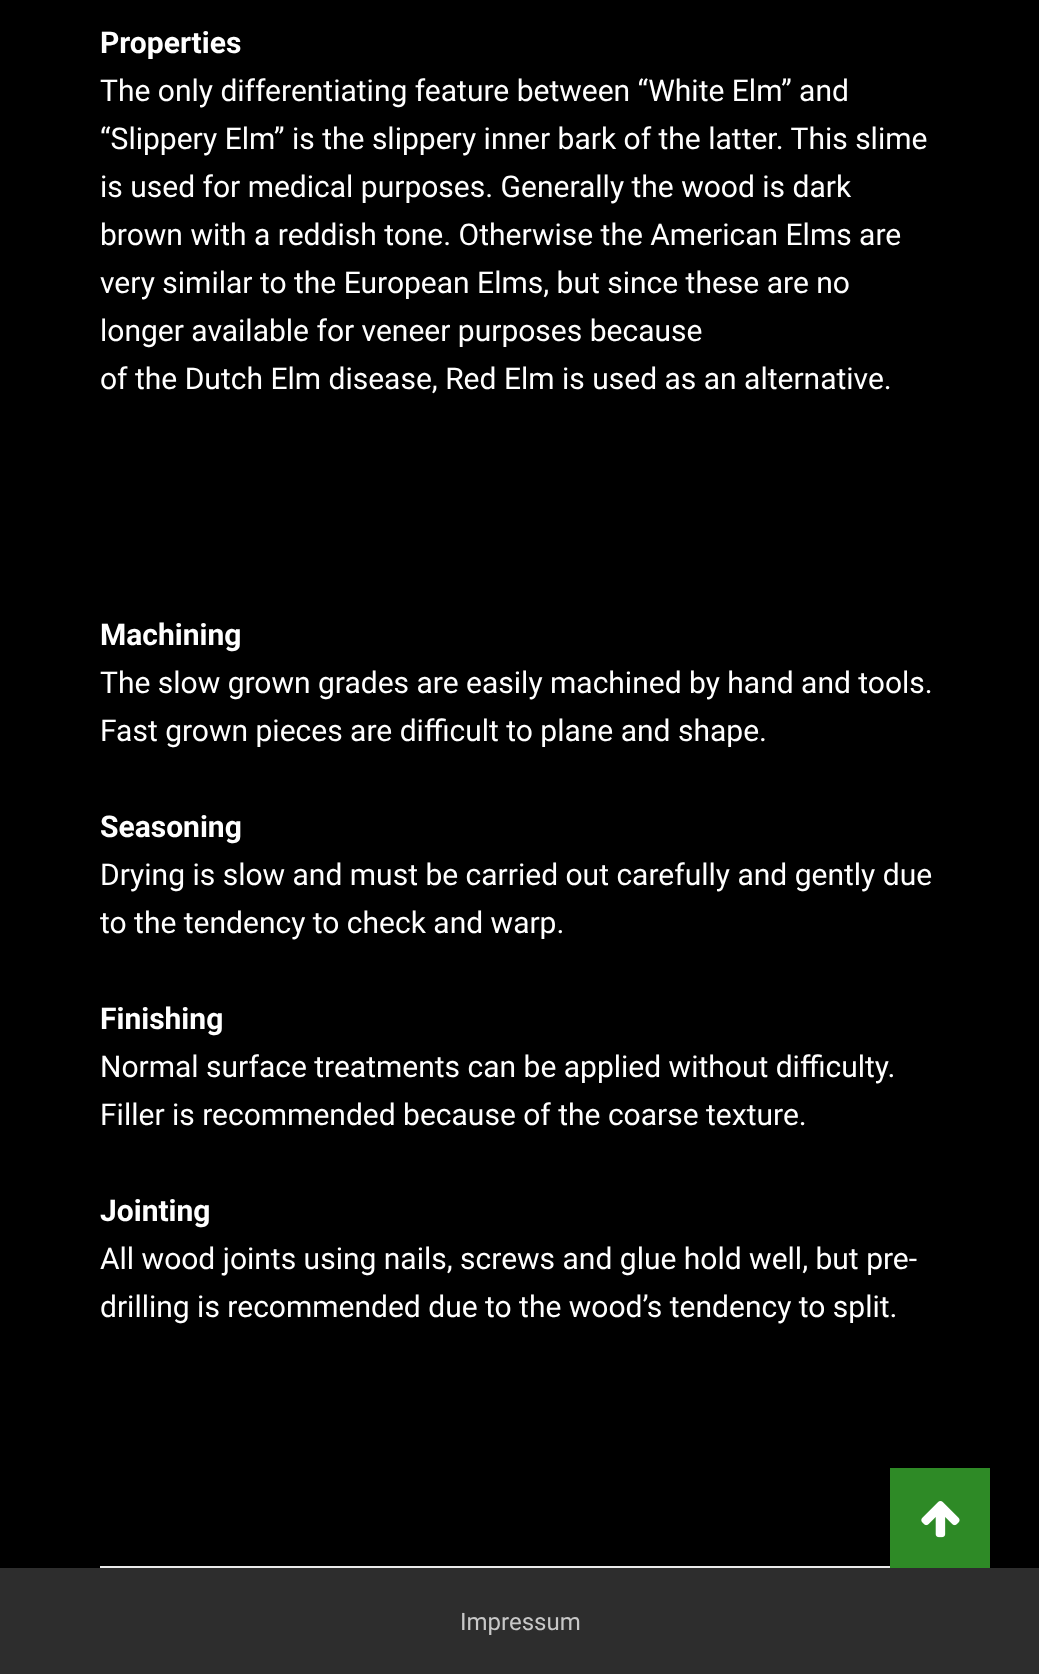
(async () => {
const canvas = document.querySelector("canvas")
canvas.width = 1039
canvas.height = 1674
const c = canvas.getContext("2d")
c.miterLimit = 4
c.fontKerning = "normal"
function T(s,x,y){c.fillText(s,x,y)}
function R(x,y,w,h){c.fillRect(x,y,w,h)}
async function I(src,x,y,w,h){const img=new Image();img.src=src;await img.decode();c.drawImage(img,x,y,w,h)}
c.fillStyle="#000"
R(0,0,1039,1674)
c.font="bold 30px Roboto"
c.fillStyle="#fff"
T("Properties",100,53)
c.font="30px Roboto"
T("The only differentiating feature between “White Elm” and",100,101)
T("“Slippery Elm” is the slippery inner bark of the latter. This slime",100,149)
T("is used for medical purposes. Generally the wood is dark",100,197)
T("brown with a reddish tone. Otherwise the American Elms are",100,245)
T("very similar to the European Elms, but since these are no",100,293)
T("longer available for veneer purposes because",100,341)
T("of the Dutch Elm disease, Red Elm is used as an alternative.",100,389)
c.font="bold 30px Roboto"
T("Machining",100,645)
c.font="30px Roboto"
T("The slow grown grades are easily machined by hand and tools.",100,693)
T("Fast grown pieces are difficult to plane and shape.",100,741)
c.font="bold 30px Roboto"
T("Seasoning",100,837)
c.font="30px Roboto"
T("Drying is slow and must be carried out carefully and gently due",100,885)
T("to the tendency to check and warp.",100,933)
c.font="bold 30px Roboto"
T("Finishing",100,1029)
c.font="30px Roboto"
T("Normal surface treatments can be applied without difficulty.",100,1077)
T("Filler is recommended because of the coarse texture.",100,1125)
c.font="bold 30px Roboto"
T("Jointing",100,1221)
c.font="30px Roboto"
T("All wood joints using nails, screws and glue hold well, but pre-",100,1269)
T("drilling is recommended due to the wood’s tendency to split.",100,1317)
c.fillStyle="#eaeaea"
R(100,1566,790,2)
c.fillStyle="#2e8a26"
R(890,1468,100,100)
await I("1.png",921,1501,39,37)
c.fillStyle="#2d2d2d"
R(0,1568,1039,106)
c.font="24px Roboto"
c.fillStyle="#c8c8c8"
T("Impressum",460,1630)
})()
